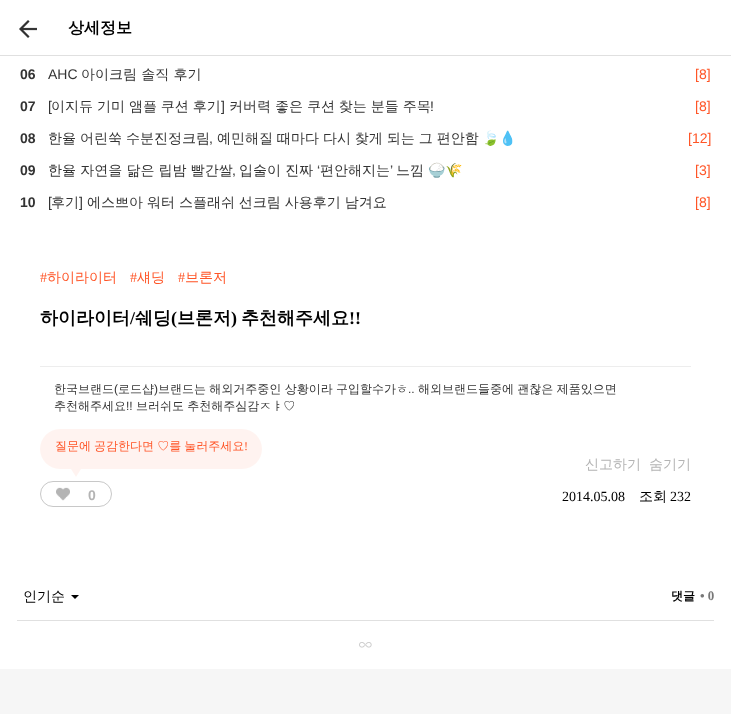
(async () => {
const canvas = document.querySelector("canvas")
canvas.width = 731
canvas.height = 714
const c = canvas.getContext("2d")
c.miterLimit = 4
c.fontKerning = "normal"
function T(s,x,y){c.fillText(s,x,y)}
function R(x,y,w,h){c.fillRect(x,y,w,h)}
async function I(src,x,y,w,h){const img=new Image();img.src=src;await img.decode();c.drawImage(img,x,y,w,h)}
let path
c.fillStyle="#f6f6f6"
R(0,0,731,714)
c.fillStyle="#fff"
R(0,0,731,55)
c.fillStyle="#e0e0e0"
R(0,55,731,1)
await I("1.png",19,20,18,18)
c.font="bold 16px WenQuanYi Zen Hei"
c.fillStyle="#000"
T("상세정보",68,33)
c.fillStyle="#fff"
R(0,56,731,613)
c.font="bold 14px Liberation Sans"
c.fillStyle="#333"
T("06",20,79)
c.font="14px Liberation Sans"
T("AHC",48,79)
c.font="500 14px WenQuanYi Zen Hei"
T("아이크림 솔직 후기",81,79)
c.font="14px Liberation Sans"
c.fillStyle="#ff5527"
T("[8]",695,79)
c.font="bold 14px Liberation Sans"
c.fillStyle="#333"
T("07",20,111)
c.font="14px Liberation Sans"
T("[",48,111)
c.wordSpacing="-0.25px"
c.font="500 14px WenQuanYi Zen Hei"
T("이지듀 기미 앰플 쿠션 후기",51,111)
c.wordSpacing="0px"
c.font="14px Liberation Sans"
T("]",221,111)
c.wordSpacing="-0.25px"
c.font="500 14px WenQuanYi Zen Hei"
T("커버력 좋은 쿠션 찾는 분들 주목",229,111)
c.wordSpacing="0px"
c.font="14px Liberation Sans"
T("!",430,111)
c.fillStyle="#ff5527"
T("[8]",695,111)
c.font="bold 14px Liberation Sans"
c.fillStyle="#333"
T("08",20,143)
c.wordSpacing="-0.25px"
c.font="500 14px WenQuanYi Zen Hei"
T("한율 어린쑥 수분진정크림",48,143)
c.wordSpacing="0px"
c.font="14px Liberation Sans"
T(",",209,143)
c.wordSpacing="-0.25px"
c.font="500 14px WenQuanYi Zen Hei"
T("예민해질 때마다 다시 찾게 되는 그 편안함",217,143)
c.wordSpacing="0px"
c.font="14px Noto Color Emoji"
T("🍃💧",482,143)
c.font="14px Liberation Sans"
c.fillStyle="#ff5527"
T("[12]",688,143)
c.font="bold 14px Liberation Sans"
c.fillStyle="#333"
T("09",20,175)
c.font="500 14px WenQuanYi Zen Hei"
T("한율 자연을 닮은 립밤 빨간쌀",48,175)
T("입술이 진짜",239,175)
c.font="14px Liberation Sans"
T("‘",317,175)
c.font="500 14px WenQuanYi Zen Hei"
T("편안해지는",320,175)
c.font="14px Liberation Sans"
T("’",390,175)
c.font="500 14px WenQuanYi Zen Hei"
T("느낌",396,175)
c.font="14px Noto Color Emoji"
T("🍚🌾",428,175)
c.font="14px Liberation Sans"
T(",",232,175)
c.fillStyle="#ff5527"
T("[3]",695,175)
c.font="bold 14px Liberation Sans"
c.fillStyle="#333"
T("10",20,207)
c.font="14px Liberation Sans"
T("[",48,207)
c.font="500 14px WenQuanYi Zen Hei"
T("후기",51,207)
c.font="14px Liberation Sans"
T("]",79,207)
c.wordSpacing="-0.25px"
c.font="500 14px WenQuanYi Zen Hei"
T("에스쁘아 워터 스플래쉬 선크림 사용후기 남겨요",87,207)
c.wordSpacing="0px"
c.font="14px Liberation Sans"
c.fillStyle="#ff5527"
T("[8]",695,207)
c.fillStyle="#ededed"
R(40,366,651,1)
c.font="14px Liberation Serif"
c.fillStyle="#ff5527"
T("#",40,282)
c.font="500 14px WenQuanYi Zen Hei"
T("하이라이터",47,282)
c.font="14px Liberation Serif"
T("#",130,282)
c.font="500 14px WenQuanYi Zen Hei"
T("섀딩",137,282)
c.font="14px Liberation Serif"
T("#",178,282)
c.font="500 14px WenQuanYi Zen Hei"
T("브론저",185,282)
c.font="bold 18px WenQuanYi Zen Hei"
c.fillStyle="#000"
T("하이라이터",40,324)
c.font="bold 18px Liberation Serif"
T("/",130,324)
c.font="bold 18px WenQuanYi Zen Hei"
T("쉐딩",135,324)
c.font="bold 18px Liberation Serif"
T("(",171,324)
c.font="bold 18px WenQuanYi Zen Hei"
T("브론저",177,324)
c.font="bold 18px Liberation Serif"
T(")",231,324)
c.font="bold 18px WenQuanYi Zen Hei"
T("추천해주세요",241,324)
c.font="bold 18px Liberation Serif"
T("!!",349,324)
c.font="500 12px WenQuanYi Zen Hei"
c.fillStyle="#333"
T("한국브랜드",54,393)
c.font="12px Liberation Sans"
T("(",114,393)
c.font="500 12px WenQuanYi Zen Hei"
T("로드샵",118,393)
c.font="12px Liberation Sans"
T(")",154,393)
c.wordSpacing="-0.25px"
c.font="500 12px WenQuanYi Zen Hei"
T("브랜드는 해외거주중인 상황이라 구입할수가ㅎ",158,393)
c.wordSpacing="0px"
c.font="12px Liberation Sans"
T("..",408,393)
c.wordSpacing="-0.25px"
c.font="500 12px WenQuanYi Zen Hei"
T("해외브랜드들중에 괜찮은 제품있으면",418,393)
c.wordSpacing="0px"
T("추천해주세요",54,410)
c.font="12px Liberation Sans"
T("!!",126,410)
c.wordSpacing="-0.25px"
c.font="500 12px WenQuanYi Zen Hei"
T("브러쉬도 추천해주심감ㅈㅑ♡",136,410)
await I("2.png",40,429,222,48)
c.wordSpacing="-0.5px"
c.fillStyle="#ff5527"
T("질문에 공감한다면 ♡를 눌러주세요",55,450)
c.wordSpacing="0px"
c.font="12px Liberation Serif"
T("!",244,450)
c.beginPath()
c.roundRect(40.5,481.5,71,25,12.5)
c.strokeStyle="#c8c8c8"
c.stroke()
await I("3.png",56,487,14,14)
c.font="bold 14px Liberation Sans"
c.fillStyle="#b4b4b4"
T("0",88,500)
c.font="500 14px WenQuanYi Zen Hei"
T("신고하기",585,469)
T("숨기기",649,469)
c.font="14px Liberation Serif"
c.fillStyle="#000"
T("2014.05.08",562,501)
c.font="500 14px WenQuanYi Zen Hei"
T("조회",639,501)
c.font="14px Liberation Serif"
T("232",670,501)
c.fillStyle="#e0e0e0"
R(17,620,697,1)
c.font="500 14px WenQuanYi Zen Hei"
c.fillStyle="#000"
T("인기순",23,601)
path = new Path2D("M71 595h8l-4 4z")
c.fill(path)
c.font="bold 12px WenQuanYi Zen Hei"
T("댓글",671,600)
c.font="bold 13px Liberation Serif"
c.fillStyle="#777"
T("• 0",700,600)
await I("4.png",359,642,13,6)
})()
